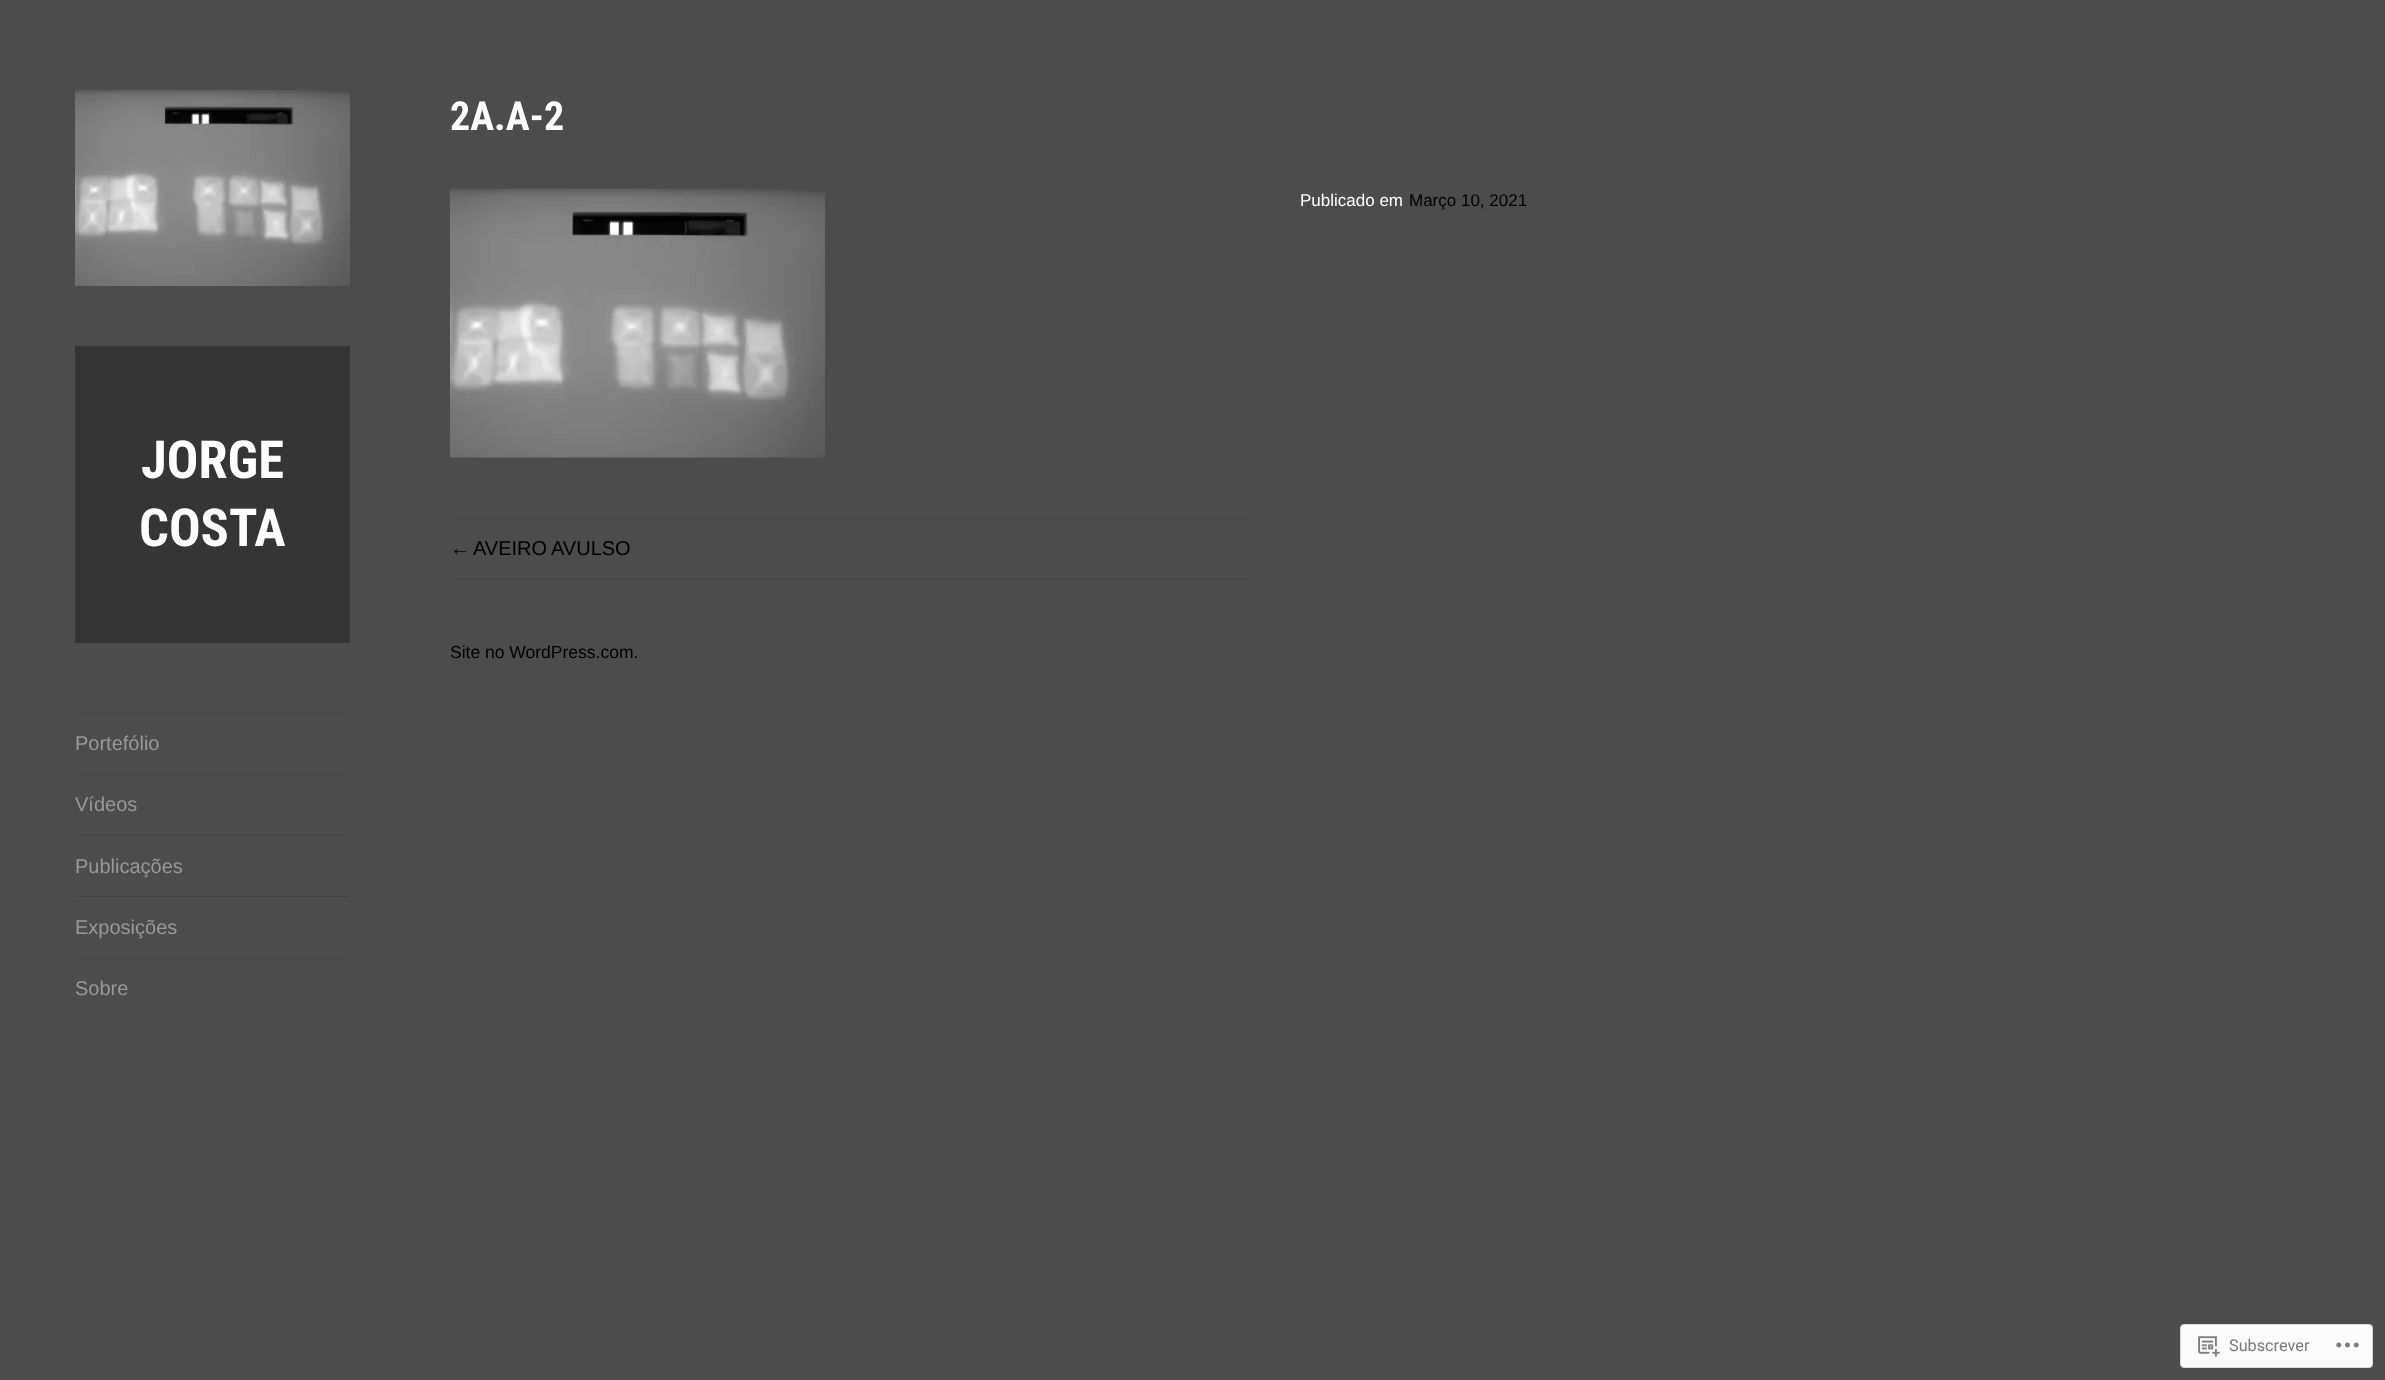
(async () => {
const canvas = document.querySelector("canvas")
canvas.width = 2385
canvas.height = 1380
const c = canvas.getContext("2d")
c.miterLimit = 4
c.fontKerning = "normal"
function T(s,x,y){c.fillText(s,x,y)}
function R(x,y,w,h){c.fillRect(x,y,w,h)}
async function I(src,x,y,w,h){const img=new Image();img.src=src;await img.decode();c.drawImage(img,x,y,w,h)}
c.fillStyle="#4c4c4c"
R(0,0,2385,1380)
c.font="bold 40px Roboto Condensed"
c.fillStyle="#fff"
T("2A.A-2",450,130)
await I("1.png",450,188,375,270)
c.font="17px Arimo"
T("Publicado em",1300,206)
c.fillStyle="#000"
T("Março 10, 2021",1409,206)
c.fillStyle="#444"
R(450,518,800,1)
R(450,579,800,1)
c.font="20px Liberation Sans"
c.fillStyle="#000"
T("←",450,555)
c.font="20px Arimo"
T("AVEIRO",473,555)
T("AVULSO",551,555)
c.font="17.5px Arimo"
T("Site no WordPress.com.",450,658)
await I("2.png",75,90,275,196)
c.fillStyle="#353535"
R(75,346,275,297)
c.font="bold 52.5px Roboto Condensed"
c.fillStyle="#fff"
T("JORGE",141,478)
T("COSTA",139,546)
c.fillStyle="#444"
R(75,713,275,1)
c.font="20px Arimo"
c.fillStyle="#999"
T("Portefólio",75,750)
c.fillStyle="#444"
R(75,774,275,1)
c.fillStyle="#999"
T("Vídeos",75,811)
c.fillStyle="#444"
R(75,835,275,1)
c.fillStyle="#999"
T("Publicações",75,873)
c.fillStyle="#444"
R(75,896,275,1)
c.fillStyle="#999"
T("Exposições",75,934)
c.fillStyle="#444"
R(75,958,275,1)
c.fillStyle="#999"
T("Sobre",75,995)
c.fillStyle="#fbfbfb"
c.beginPath()
c.roundRect(2180.5,1324.5,192,43,3.5)
c.fill()
c.strokeStyle="#d9d9db"
c.stroke()
await I("3.png",2198,1336,22,21)
c.font="16.25px Roboto"
c.fillStyle="#777b81"
T("Subscrever",2229,1351)
await I("4.png",2336,1342,23,6)
})()
